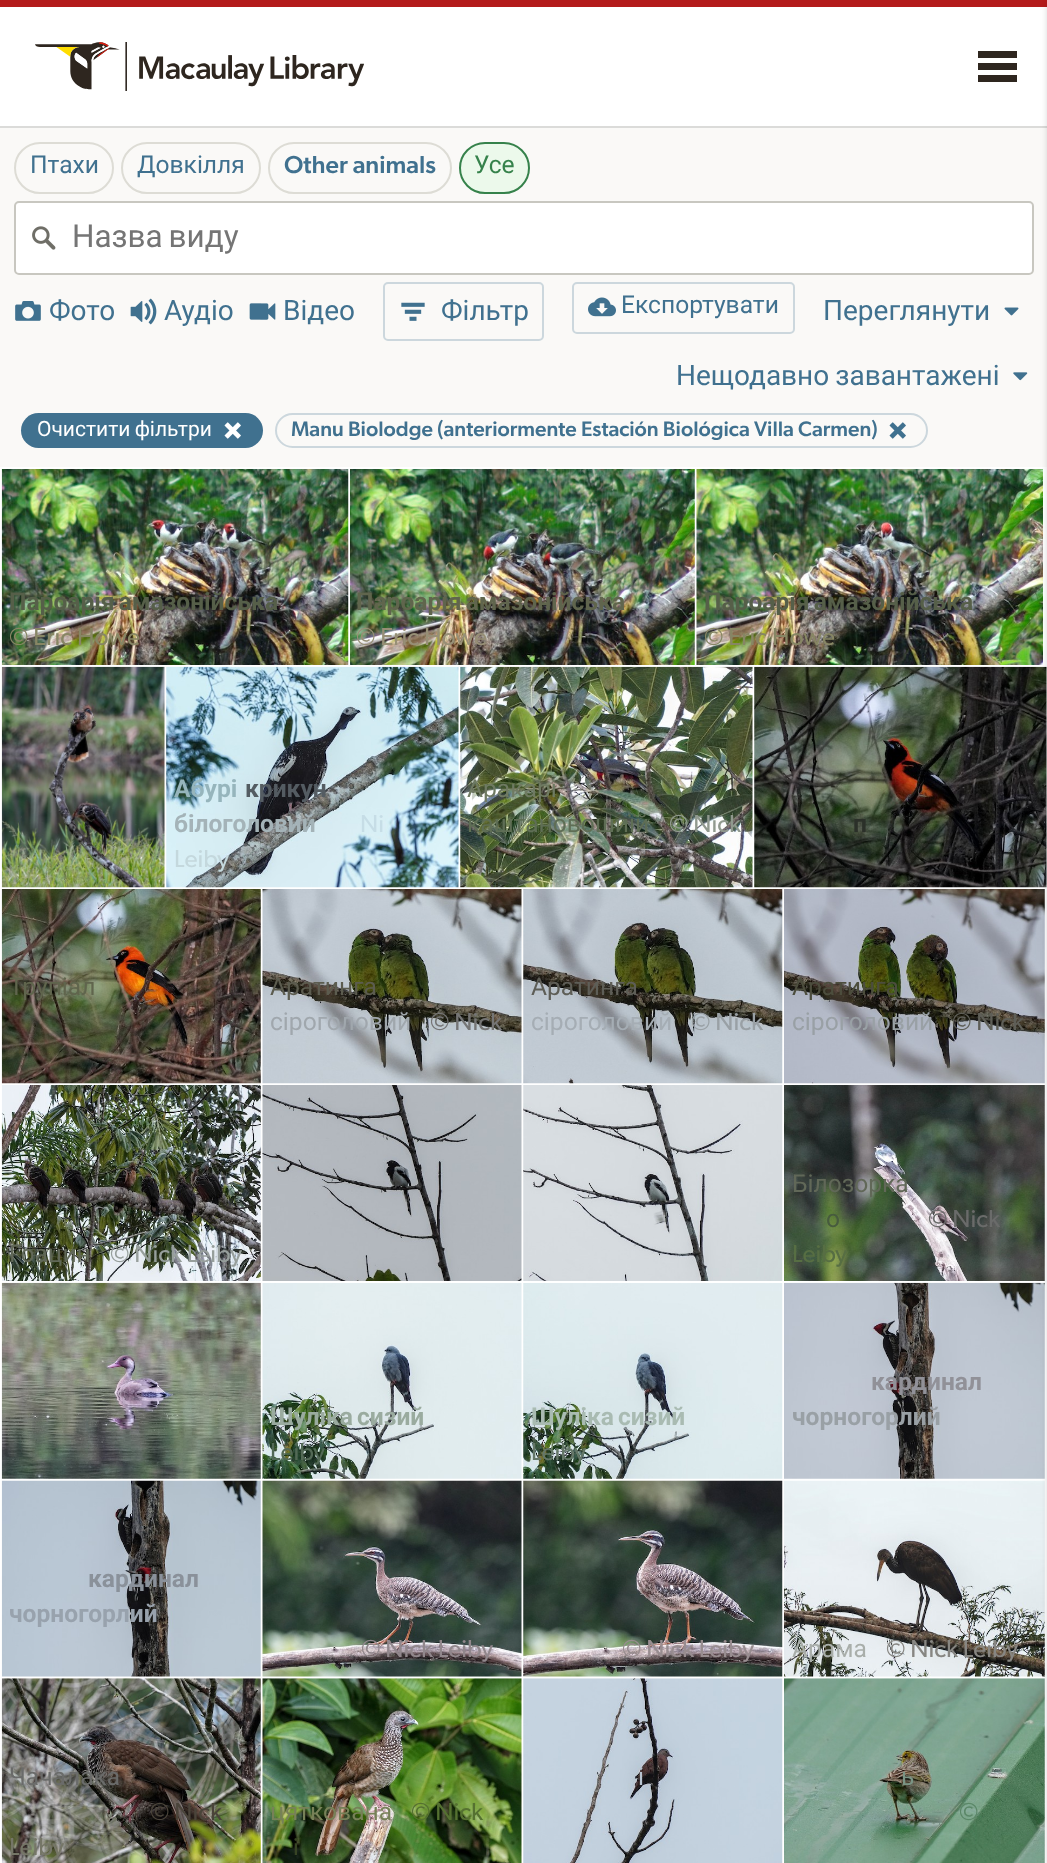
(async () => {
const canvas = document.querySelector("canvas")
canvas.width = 1047
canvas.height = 1863
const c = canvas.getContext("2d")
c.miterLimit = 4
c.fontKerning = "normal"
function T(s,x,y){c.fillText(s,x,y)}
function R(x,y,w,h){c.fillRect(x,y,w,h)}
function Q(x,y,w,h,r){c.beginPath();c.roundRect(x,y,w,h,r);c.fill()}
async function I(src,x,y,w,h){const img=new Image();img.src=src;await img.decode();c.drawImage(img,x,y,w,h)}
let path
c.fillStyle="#fff"
R(0,0,1047,1863)
c.fillStyle="#b31b1b"
R(0,0,1047,7)
c.fillStyle="#dbdbd9"
R(0,126,1047,2)
await I("1.png",35,42,329,49)
c.fillStyle="#2e261f"
path = new Path2D("M978 51h39v7h-39zm0 12h39v7h-39zm0 12h39v7h-39z")
c.fill(path,"evenodd")
c.fillStyle="#faf9f7"
R(0,128,1047,339)
await I("14.png",696,469,347,196)
await I("18.png",754,666,293,222)
await I("22.png",784,889,261,195)
await I("26.png",784,1085,261,196)
await I("30.png",784,1282,261,197)
await I("34.png",784,1480,261,197)
await I("37.png",784,1678,261,185)
c.fillStyle="#00000033"
c.filter="blur(3.5px)"
c.beginPath()
c.rect(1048,4,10,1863)
c.fill()
c.filter="none"
c.beginPath()
c.roundRect(15,143,98,50,25)
c.strokeStyle="#dddcd5"
c.lineWidth=2
c.stroke()
c.font="24.6px Roboto"
c.fillStyle="#40718f"
T("Птахи",30,173)
c.beginPath()
c.roundRect(122,143,138,50,25)
c.stroke()
T("Довкілля",137,173)
c.beginPath()
c.roundRect(269,143,182,50,25)
c.stroke()
c.font="500 24.6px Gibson"
T("Other animals",284,173)
c.fillStyle="#ecf9eb"
c.beginPath()
c.roundRect(460,143,69,50,25)
c.fill()
c.strokeStyle="#36824b"
c.stroke()
c.font="24.6px Roboto"
c.fillStyle="#36824b"
T("Усе",474,173)
c.fillStyle="#fff"
c.beginPath()
c.roundRect(15,202,1018,72,4)
c.fill()
c.strokeStyle="#c8c7c0"
c.stroke()
await I("2.png",32,226,24,24)
c.wordSpacing="-2px"
c.font="31.5px Roboto"
c.fillStyle="#757575"
T("Назва виду",72,247)
await I("3.png",15,301,26,20)
c.wordSpacing="0px"
c.font="28px Roboto"
c.fillStyle="#40718f"
T("Фото",49,320)
await I("4.png",130,298,27,27)
T("Аудіо",164,320)
await I("5.png",249,303,27,17)
T("Відео",283,320)
c.beginPath()
c.roundRect(384,283,159,57,4)
c.strokeStyle="#ccd7dd"
c.stroke()
await I("6.png",401,302,24,19)
T("Фільтр",441,320)
c.beginPath()
c.roundRect(573,283,221,50,4)
c.stroke()
await I("7.png",588,297,28,20)
c.font="24.6px Roboto"
T("Експортувати",621,313)
c.font="28px Roboto"
T("Переглянути",823,320)
await I("8.png",1004,307,15,9)
c.wordSpacing="-1px"
T("Нещодавно завантажені",676,385)
await I("9.png",1013,372,15,9)
Q(21,413,242,35,17.5)
c.font="21px Roboto"
c.fillStyle="#fff"
T("Очистити фільтри",37,436)
await I("10.png",224,422,17,17)
c.beginPath()
c.roundRect(276,414,651,33,16.5)
c.stroke()
c.wordSpacing="0px"
c.font="500 21px Gibson"
c.fillStyle="#40718f"
T("Manu Biolodge (anteriormente Estación Biológica Villa Carmen)",291,436)
await I("11.png",889,422,17,17)
await I("12.png",1,469,348,196)
c.wordSpacing="-2px"
c.font="bold 24.6px Roboto"
c.fillStyle="#565f49"
T("Пароарія амазонійська",9,610)
c.wordSpacing="0px"
c.font="24.6px Gibson"
c.fillStyle="#878664"
T("© Eric Howe",9,645)
await I("13.png",350,469,345,196)
c.wordSpacing="-2px"
c.font="bold 24.6px Roboto"
c.fillStyle="#60654d"
T("Пароарія амазонійська",356,610)
c.wordSpacing="0px"
c.font="24.6px Gibson"
c.fillStyle="#978f76"
T("© Eric Howe",356,645)
c.wordSpacing="-2px"
c.font="bold 24.6px Roboto"
c.fillStyle="#565f49"
T("Пароарія амазонійська",704,610)
c.wordSpacing="0px"
c.font="24.6px Gibson"
c.fillStyle="#878664"
T("© Eric Howe",704,645)
await I("15.png",1,666,164,222)
await I("16.png",166,666,293,222)
c.font="bold 24.6px Roboto"
c.fillStyle="#96b5bc"
T("Абурі",174,797)
c.fillStyle="#545c62"
T("крикун",245,797)
c.fillStyle="#a4b3b8"
T("білоголовий",174,832)
c.font="24.6px Gibson"
c.fillStyle="#c6dde6"
T("Ni",360,832)
c.fillStyle="#c4d8dd"
T("Leiby",174,867)
await I("17.png",460,666,293,222)
c.font="24.6px Roboto"
c.fillStyle="#6f7a62"
T("Аракарі",467,797)
c.fillStyle="#5f6e55"
T("каштановошиїй",467,832)
c.font="24.6px Gibson"
c.fillStyle="#90998e"
T("© Nick",669,832)
c.wordSpacing="-2px"
c.font="bold 24.6px Roboto"
c.fillStyle="#2b3029"
T("п",853,832)
await I("19.png",1,889,260,195)
c.wordSpacing="0px"
c.font="24.6px Roboto"
c.fillStyle="#60654d"
T("Трупіал",9,995)
await I("20.png",262,889,260,195)
c.fillStyle="#5c5c4f"
T("Аратинга",270,995)
c.fillStyle="#a0a7ad"
T("сіроголовий",270,1030)
c.font="24.6px Gibson"
c.fillStyle="#757575"
T("© Nick",430,1030)
await I("21.png",523,889,260,195)
c.font="24.6px Roboto"
c.fillStyle="#5e5e57"
T("Аратинга",531,995)
c.fillStyle="#a5adb4"
T("сіроголовий",531,1030)
c.font="24.6px Gibson"
c.fillStyle="#99a0a5"
T("© Nick",691,1030)
c.font="24.6px Roboto"
c.fillStyle="#4c4d3d"
T("Аратинга",792,995)
c.fillStyle="#99a0a5"
T("сіроголовий",792,1030)
c.font="24.6px Gibson"
c.fillStyle="#5e5e57"
T("© Nick",952,1030)
await I("23.png",1,1085,260,196)
c.font="24.6px Roboto"
c.fillStyle="#616858"
T("Гоацин",9,1262)
c.font="24.6px Gibson"
c.fillStyle="#979f9c"
T("© Nick Leiby",110,1262)
await I("24.png",262,1085,260,196)
await I("25.png",523,1085,260,196)
c.font="24.6px Roboto"
c.fillStyle="#616858"
T("Білозорка",792,1192)
c.fillStyle="#475b3e"
T("о",826,1227)
c.font="24.6px Gibson"
c.fillStyle="#6a6b6a"
T("© Nick",928,1227)
c.fillStyle="#576e43"
T("Leiby",792,1262)
await I("27.png",1,1282,260,197)
await I("28.png",262,1283,260,196)
c.wordSpacing="-2px"
c.font="bold 24.6px Roboto"
c.fillStyle="#9aab9f"
T("Шуліка сизий",270,1425)
c.wordSpacing="0px"
c.font="24.6px Gibson"
c.fillStyle="#536956"
T("Leiby",270,1460)
await I("29.png",523,1283,260,196)
c.wordSpacing="-2px"
c.font="bold 24.6px Roboto"
c.fillStyle="#a9bbb2"
T("Шуліка сизий",531,1425)
c.wordSpacing="0px"
c.font="24.6px Gibson"
c.fillStyle="#657768"
T("Leiby",531,1460)
c.font="bold 24.6px Roboto"
c.fillStyle="#919198"
T("кардинал",871,1390)
c.fillStyle="#99a0a5"
T("чорногорлий",792,1425)
await I("31.png",1,1480,260,197)
c.fillStyle="#8a919a"
T("кардинал",88,1587)
c.fillStyle="#98a2ad"
T("чорногорлий",9,1622)
await I("32.png",262,1480,260,197)
c.font="24.6px Gibson"
c.fillStyle="#91878c"
T("© Nick Leiby",361,1657)
await I("33.png",523,1480,260,197)
c.fillStyle="#988d90"
T("© Nick Leiby",622,1657)
c.font="24.6px Roboto"
c.fillStyle="#a9aeaa"
T("Арама",792,1657)
c.font="24.6px Gibson"
c.fillStyle="#878682"
T("© Nick Leiby",886,1657)
await I("35.png",1,1678,260,185)
c.font="24.6px Roboto"
c.fillStyle="#6a6b6a"
T("Чачалака",9,1785)
c.font="24.6px Gibson"
c.fillStyle="#4a443a"
T("© Nick",150,1820)
c.fillStyle="#757667"
T("Leiby",9,1855)
await I("36.png",523,1678,260,185)
c.font="24.6px Roboto"
c.fillStyle="#b8c4d0"
T("і",638,1785)
c.fillStyle="#7a9484"
T("ь",901,1785)
c.font="24.6px Gibson"
c.fillStyle="#5b8768"
T("©",959,1820)
await I("38.png",262,1678,260,185)
c.font="24.6px Roboto"
c.fillStyle="#778158"
T("цяткована",270,1820)
c.font="24.6px Gibson"
c.fillStyle="#557131"
T("© Nick",411,1820)
c.fillStyle="#374424"
T("i",293,1855)
})()
